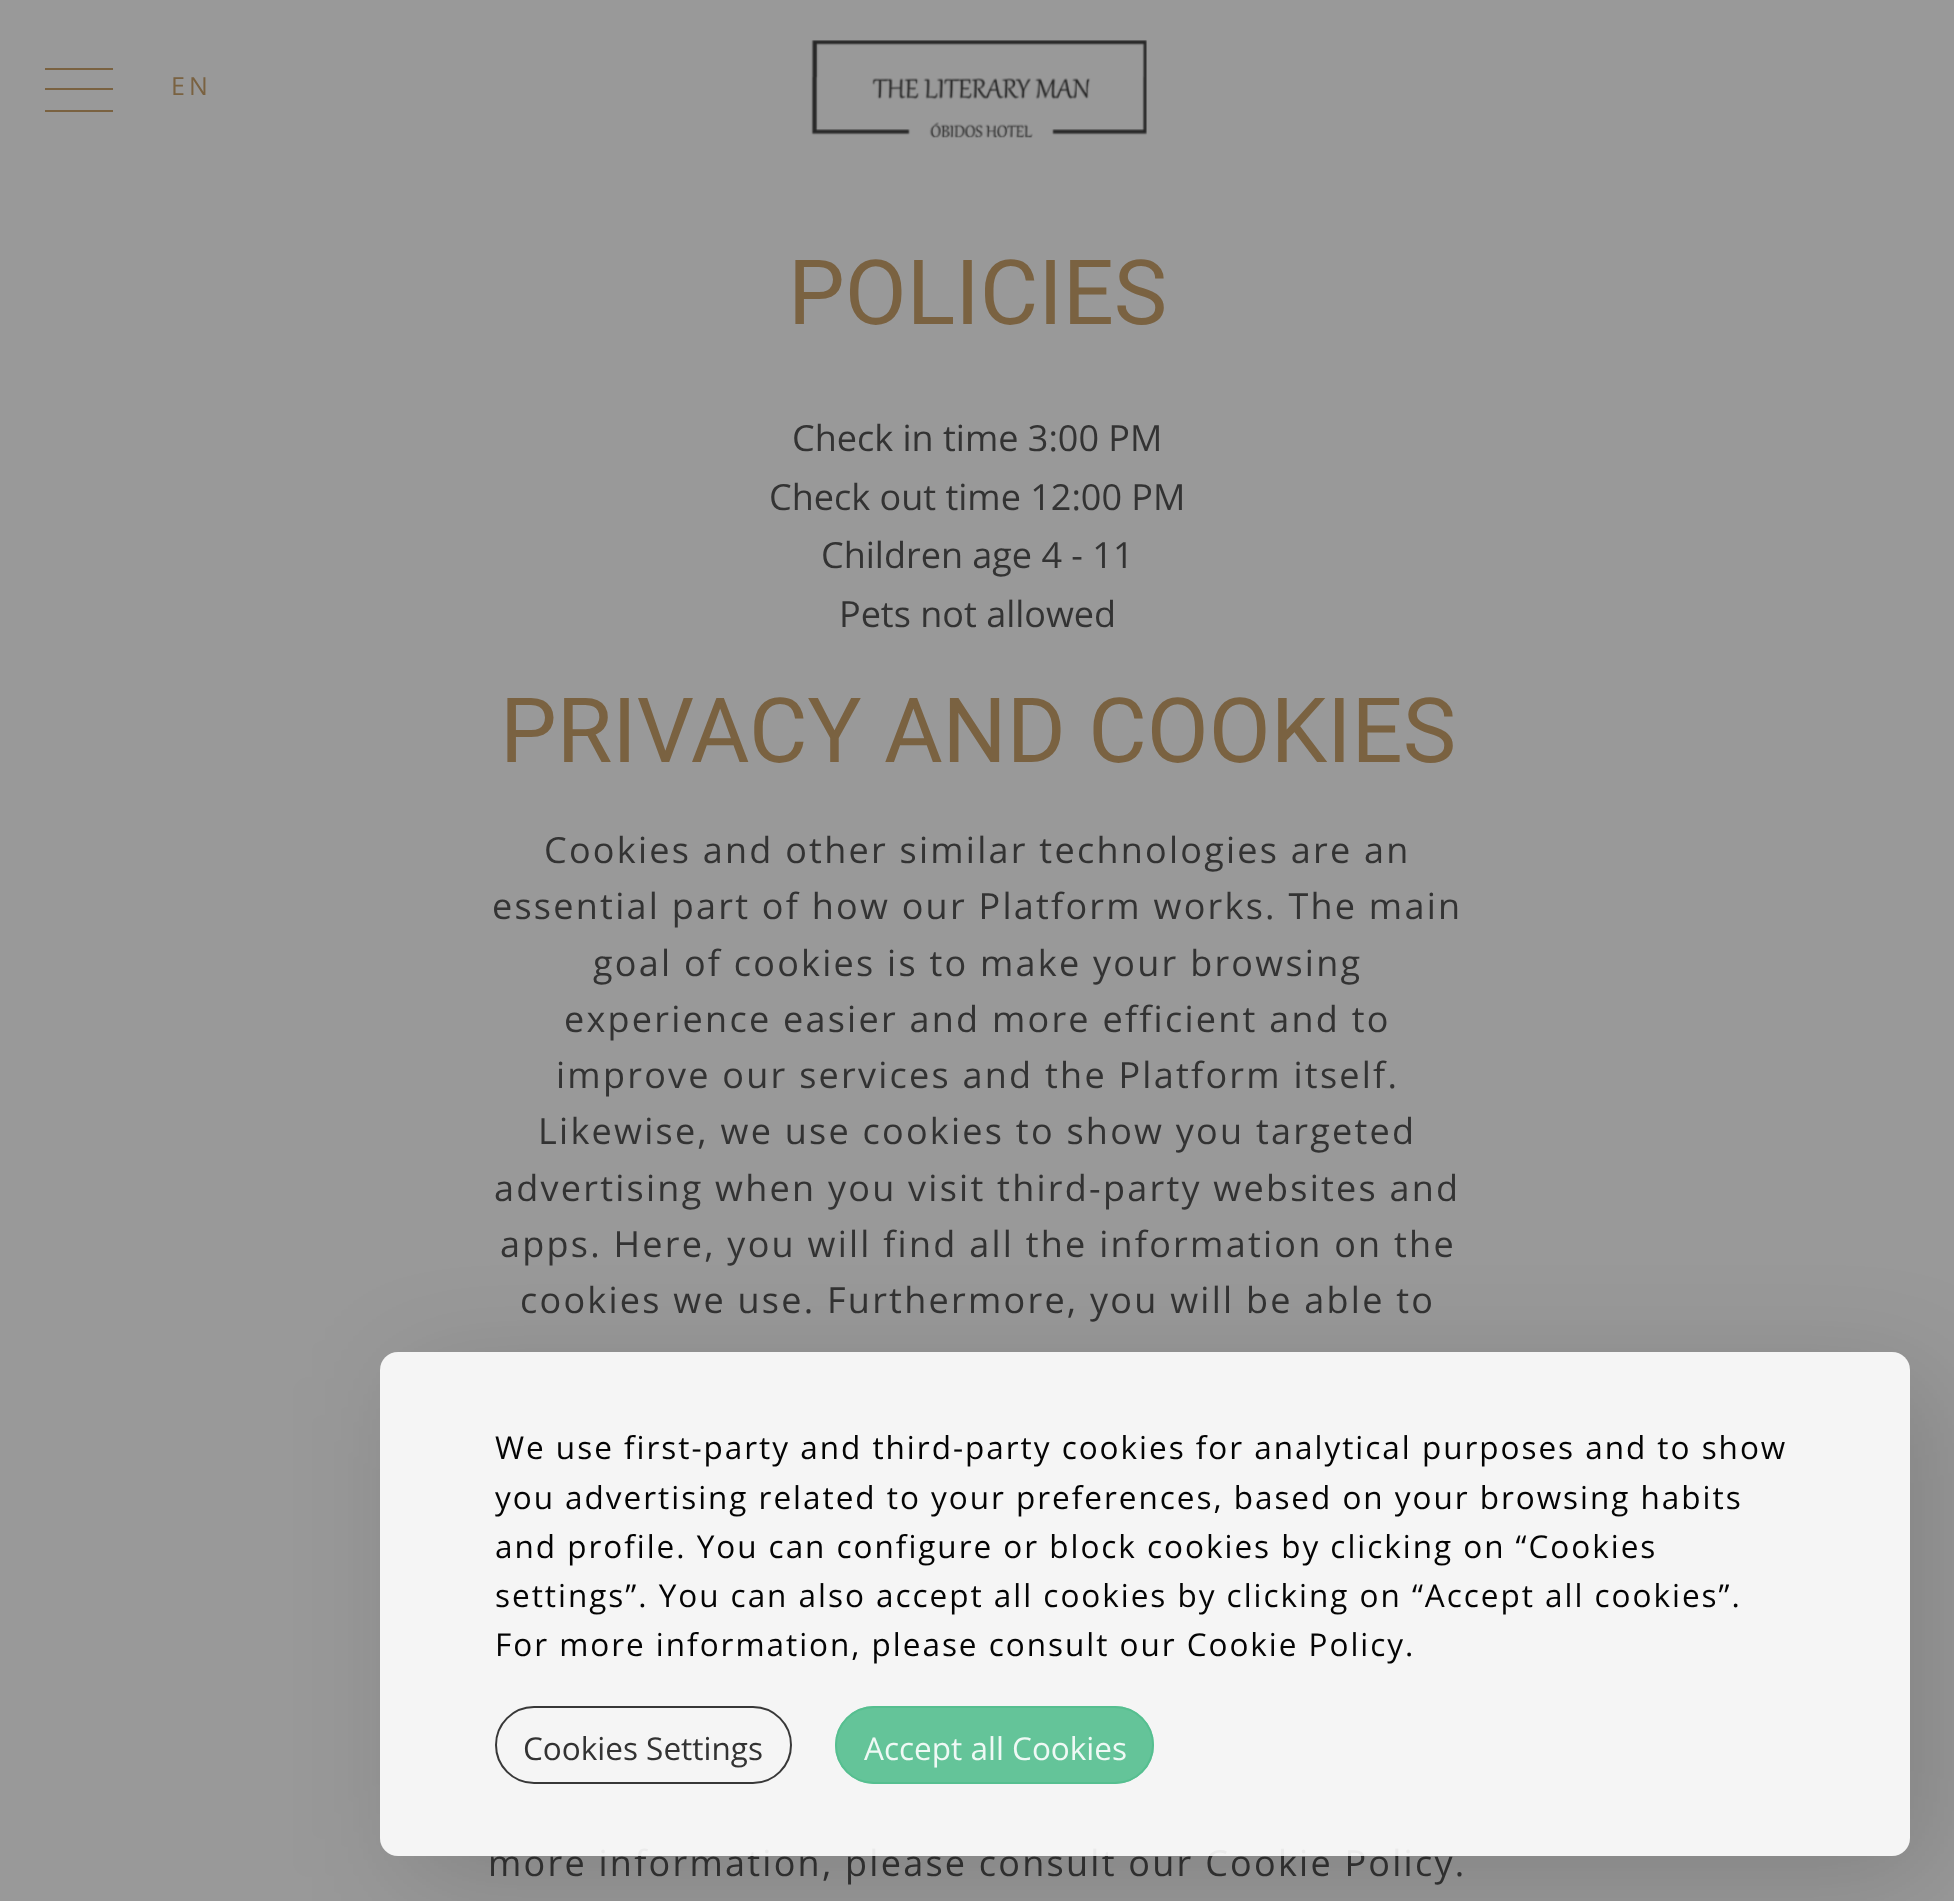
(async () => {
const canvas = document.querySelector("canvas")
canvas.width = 1954
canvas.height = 1901
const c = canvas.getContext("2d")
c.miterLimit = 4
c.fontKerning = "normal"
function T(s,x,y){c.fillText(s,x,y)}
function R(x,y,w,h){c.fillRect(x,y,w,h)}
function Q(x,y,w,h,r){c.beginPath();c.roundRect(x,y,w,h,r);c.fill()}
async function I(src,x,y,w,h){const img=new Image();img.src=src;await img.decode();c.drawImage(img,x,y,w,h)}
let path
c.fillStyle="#999"
R(0,0,1954,1901)
c.fillStyle="#7a6241"
R(45,68,68,2)
R(45,110,68,2)
R(45,88,68,2)
c.letterSpacing="4px"
c.font="25px Open Sans"
T("EN",171,95)
await I("1.png",811,40,336,98)
c.letterSpacing="0px"
c.font="90px Roboto"
T("POLICIES",788,324)
c.font="36px Open Sans"
c.fillStyle="#333"
T("Check in time 3:00 PM",792,451)
T("Check out time 12:00 PM",769,510)
T("Children age 4 - 11",821,568)
T("Pets not allowed",839,627)
c.font="90px Roboto"
c.fillStyle="#7a6241"
T("PRIVACY AND COOKIES",500,762)
c.letterSpacing="2.25px"
c.font="36px Open Sans"
c.fillStyle="#333"
T("Cookies and other similar technologies are an",544,863)
T("essential part of how our Platform works. The main",492,919)
T("goal of cookies is to make your browsing",593,976)
T("experience easier and more efficient and to",564,1032)
T("improve our services and the Platform itself.",556,1088)
T("Likewise, we use cookies to show you targeted",538,1144)
T("advertising when you visit third-party websites and",494,1201)
T("apps. Here, you will find all the information on the",500,1257)
T("cookies we use. Furthermore, you will be able to",520,1313)
T("more information, please consult our Cookie Policy.",488,1876)
c.save()
path = new Path2D("M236 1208h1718v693h-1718zm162 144h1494c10 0 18 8 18 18v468c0 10-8 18-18 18h-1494c-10 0-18-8-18-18v-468c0-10 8-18 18-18z")
c.clip(path,"evenodd")
c.fillStyle="#00000026"
c.filter="blur(56px)"
c.beginPath()
c.roundRect(405,1377,1526,500,16)
c.fill()
c.filter="none"
c.restore()
c.fillStyle="#ffffffe6"
Q(380,1352,1530,504,18)
c.letterSpacing="1.97px"
c.font="31.5px Open Sans"
c.fillStyle="#040404"
T("We use first-party and third-party cookies for analytical purposes and to show",495,1459)
T("you advertising related to your preferences, based on your browsing habits",495,1509)
T("and profile. You can configure or block cookies by clicking on “Cookies",495,1558)
T("settings”. You can also accept all cookies by clicking on “Accept all cookies”.",495,1607)
T("For more information, please consult our Cookie Policy.",495,1656)
c.beginPath()
c.roundRect(496,1707,295,76,38)
c.strokeStyle="#232323e6"
c.lineWidth=2
c.stroke()
c.letterSpacing="0px"
c.fillStyle="#333"
T("Cookies Settings",523,1760)
c.fillStyle="#54bf8fe6"
Q(835,1706,319,78,39)
c.beginPath()
c.roundRect(836,1707,317,76,38)
c.strokeStyle="#54bf8fe6"
c.stroke()
c.fillStyle="#eff9f5"
T("Accept all Cookies",864,1760)
})()
